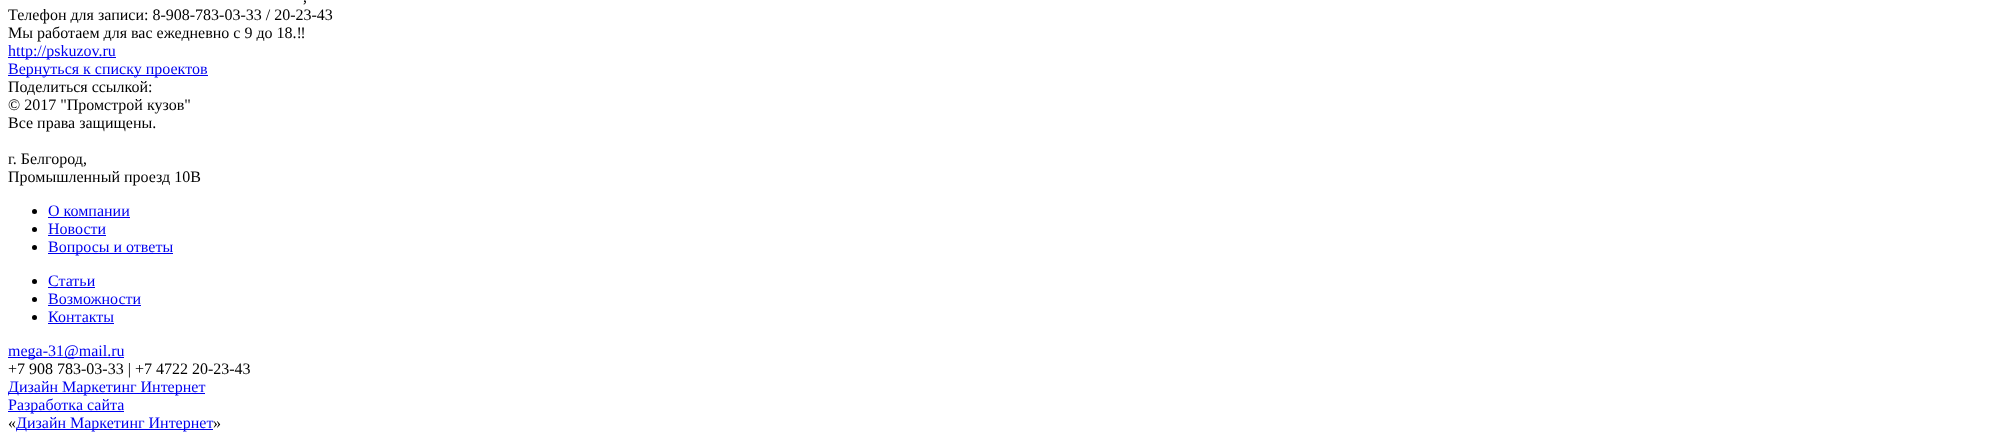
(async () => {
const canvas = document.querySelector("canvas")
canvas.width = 1993
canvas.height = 440
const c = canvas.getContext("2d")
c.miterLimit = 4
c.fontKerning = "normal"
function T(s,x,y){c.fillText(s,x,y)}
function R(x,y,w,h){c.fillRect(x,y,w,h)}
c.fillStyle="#fff"
R(0,0,1993,440)
c.font="16px Liberation Serif"
c.fillStyle="#000"
T(",",303,2)
T("Телефон для записи: 8-908-783-03-33 / 20-23-43",8,20)
T("Мы работаем для вас ежедневно с 9 до 18.‼",8,38)
c.fillStyle="#00e"
R(8,57,108,1)
T("http://pskuzov.ru",8,56)
R(8,75,200,1)
T("Вернуться к списку проектов",8,74)
c.fillStyle="#000"
T("Поделиться ссылкой:",8,92)
T("© 2017 \"Промстрой кузов\"",8,110)
T("Все права защищены.",8,128)
T("г. Белгород,",8,164)
T("Промышленный проезд 10В",8,182)
c.beginPath()
c.arc(34.5,211.5,2.5,0,7)
c.fill()
c.fillStyle="#00e"
T("О компании",48,216)
R(48,217,82,1)
c.fillStyle="#000"
c.beginPath()
c.arc(34.5,229.5,2.5,0,7)
c.fill()
c.fillStyle="#00e"
T("Новости",48,234)
R(48,235,58,1)
c.fillStyle="#000"
c.beginPath()
c.arc(34.5,247.5,2.5,0,7)
c.fill()
c.fillStyle="#00e"
R(48,253,125,1)
T("Вопросы и ответы",48,252)
c.fillStyle="#000"
c.beginPath()
c.arc(34.5,281.5,2.5,0,7)
c.fill()
c.fillStyle="#00e"
T("Статьи",48,286)
R(48,287,47,1)
c.fillStyle="#000"
c.beginPath()
c.arc(34.5,299.5,2.5,0,7)
c.fill()
c.fillStyle="#00e"
T("Возможности",48,304)
R(48,305,93,1)
c.fillStyle="#000"
c.beginPath()
c.arc(34.5,317.5,2.5,0,7)
c.fill()
c.fillStyle="#00e"
T("Контакты",48,322)
R(48,323,66,1)
R(8,357,116,1)
T("mega-31@mail.ru",8,356)
c.fillStyle="#000"
T("+7 908 783-03-33 | +7 4722 20-23-43",8,374)
c.fillStyle="#00e"
R(8,393,197,1)
T("Дизайн Маркетинг Интернет",8,392)
R(8,411,116,1)
T("Разработка сайта",8,410)
c.fillStyle="#000"
T("«",8,428)
c.fillStyle="#00e"
R(16,429,197,1)
T("Дизайн Маркетинг Интернет",16,428)
c.fillStyle="#000"
T("»",213,428)
})()
